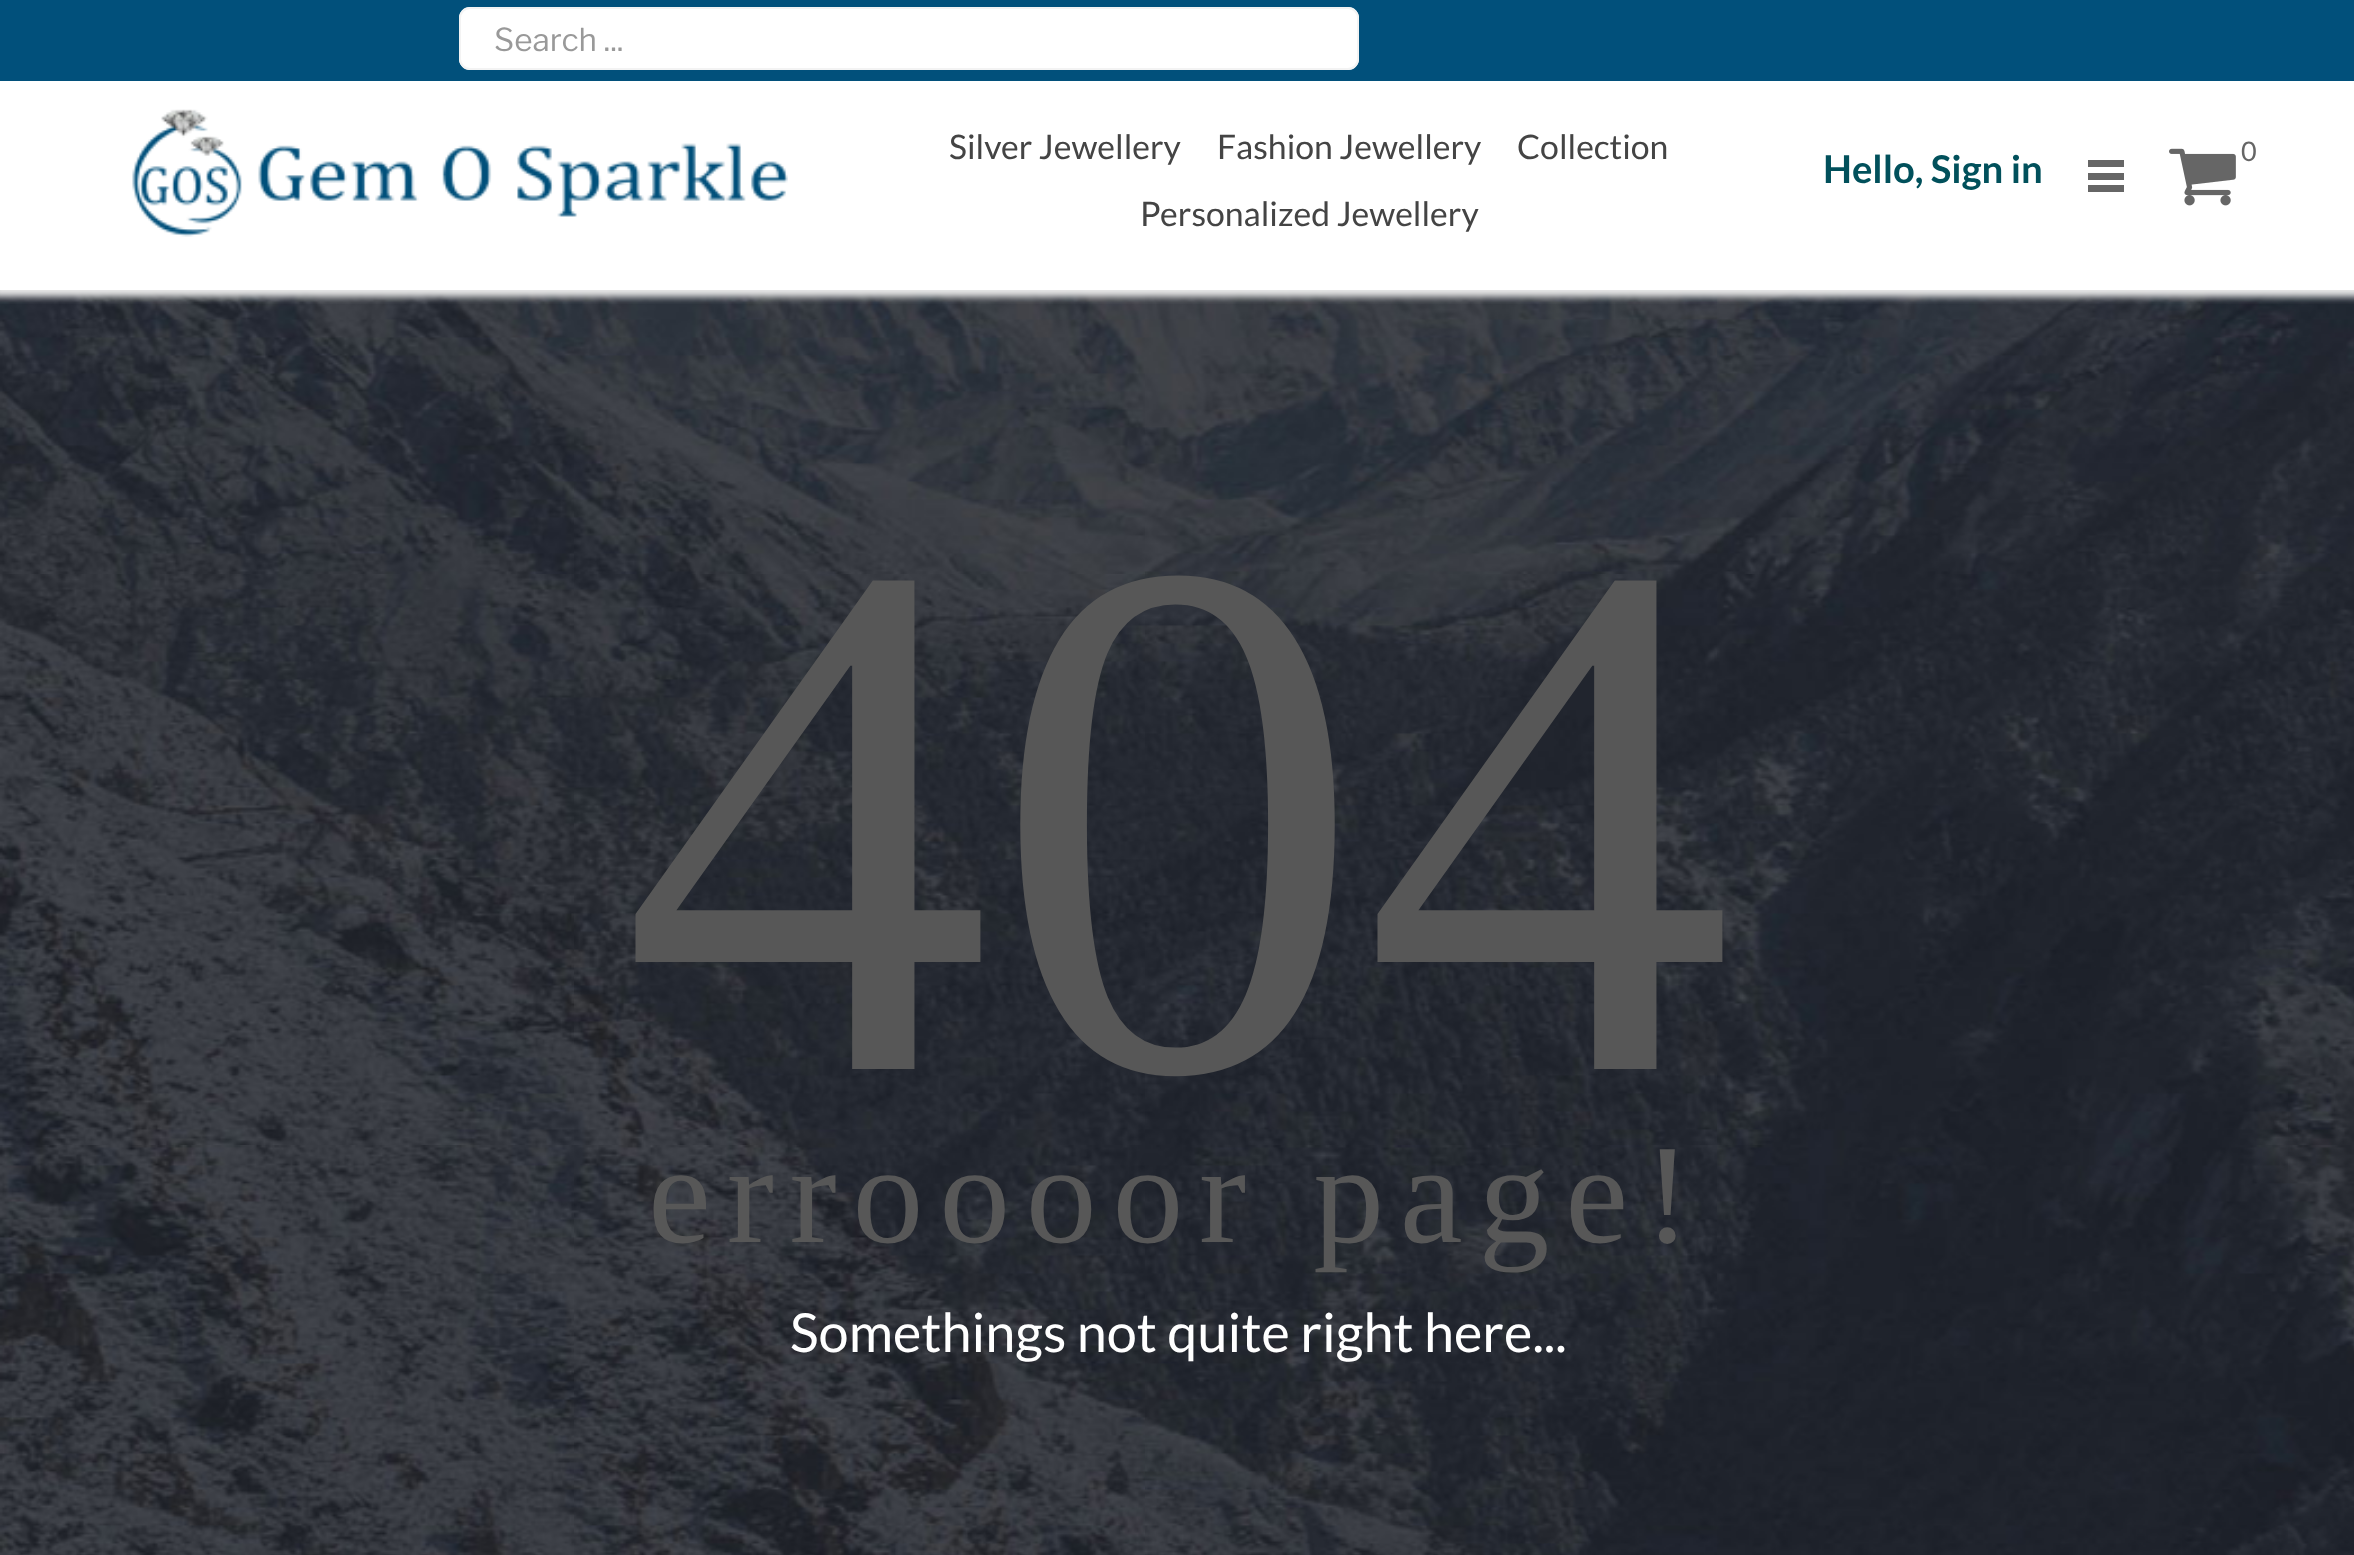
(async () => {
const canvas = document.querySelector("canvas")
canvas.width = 2354
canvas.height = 1555
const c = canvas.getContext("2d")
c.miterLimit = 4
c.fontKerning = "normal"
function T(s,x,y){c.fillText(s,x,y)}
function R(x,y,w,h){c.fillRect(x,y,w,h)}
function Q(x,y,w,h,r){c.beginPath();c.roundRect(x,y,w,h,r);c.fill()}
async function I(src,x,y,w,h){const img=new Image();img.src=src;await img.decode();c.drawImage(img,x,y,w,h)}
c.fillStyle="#fff"
R(0,0,2354,1555)
await I("3.png",0,290,2354,1265)
c.save()
c.beginPath()
c.rect(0,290,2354,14)
c.clip()
c.fillStyle="#e7e7e7"
c.filter="blur(3.5px)"
c.beginPath()
c.rect(-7,-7,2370,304)
c.fill()
c.filter="none"
c.restore()
c.fillStyle="#01507b"
R(0,0,2354,81)
c.fillStyle="#fff"
Q(459,7,900,63,11)
c.beginPath()
c.roundRect(460,8,898,61,10)
c.strokeStyle="#f2f2f2f2"
c.lineWidth=2
c.stroke()
c.font="31.5px Libre Franklin"
c.fillStyle="#999"
T("Search ...",494,51)
await I("1.png",132,109,656,128)
c.font="33.75px Lato"
c.fillStyle="#444"
T("Silver Jewellery",949,159)
T("Fashion Jewellery",1217,159)
T("Collection",1517,159)
T("Personalized Jewellery",1140,226)
await I("2.png",2169,148,67,58)
c.font="27px Lato"
c.fillStyle="#666"
T("0",2241,161)
c.font="bold 38.25px Lato"
c.fillStyle="#01505b"
T("Hello, Sign in",1823,183)
c.fillStyle="#666"
R(2088,173,36,7)
R(2088,160,36,7)
R(2088,185,36,7)
c.font="742px Liberation Serif"
c.fillStyle="#575757"
T("404",621,1069)
c.letterSpacing="15.75px"
c.font="141.75px Liberation Serif"
T("erroooor page!",648,1242)
c.letterSpacing="0px"
c.font="54px Lato"
c.fillStyle="#fff"
T("Somethings not quite right here...",790,1352)
})()
